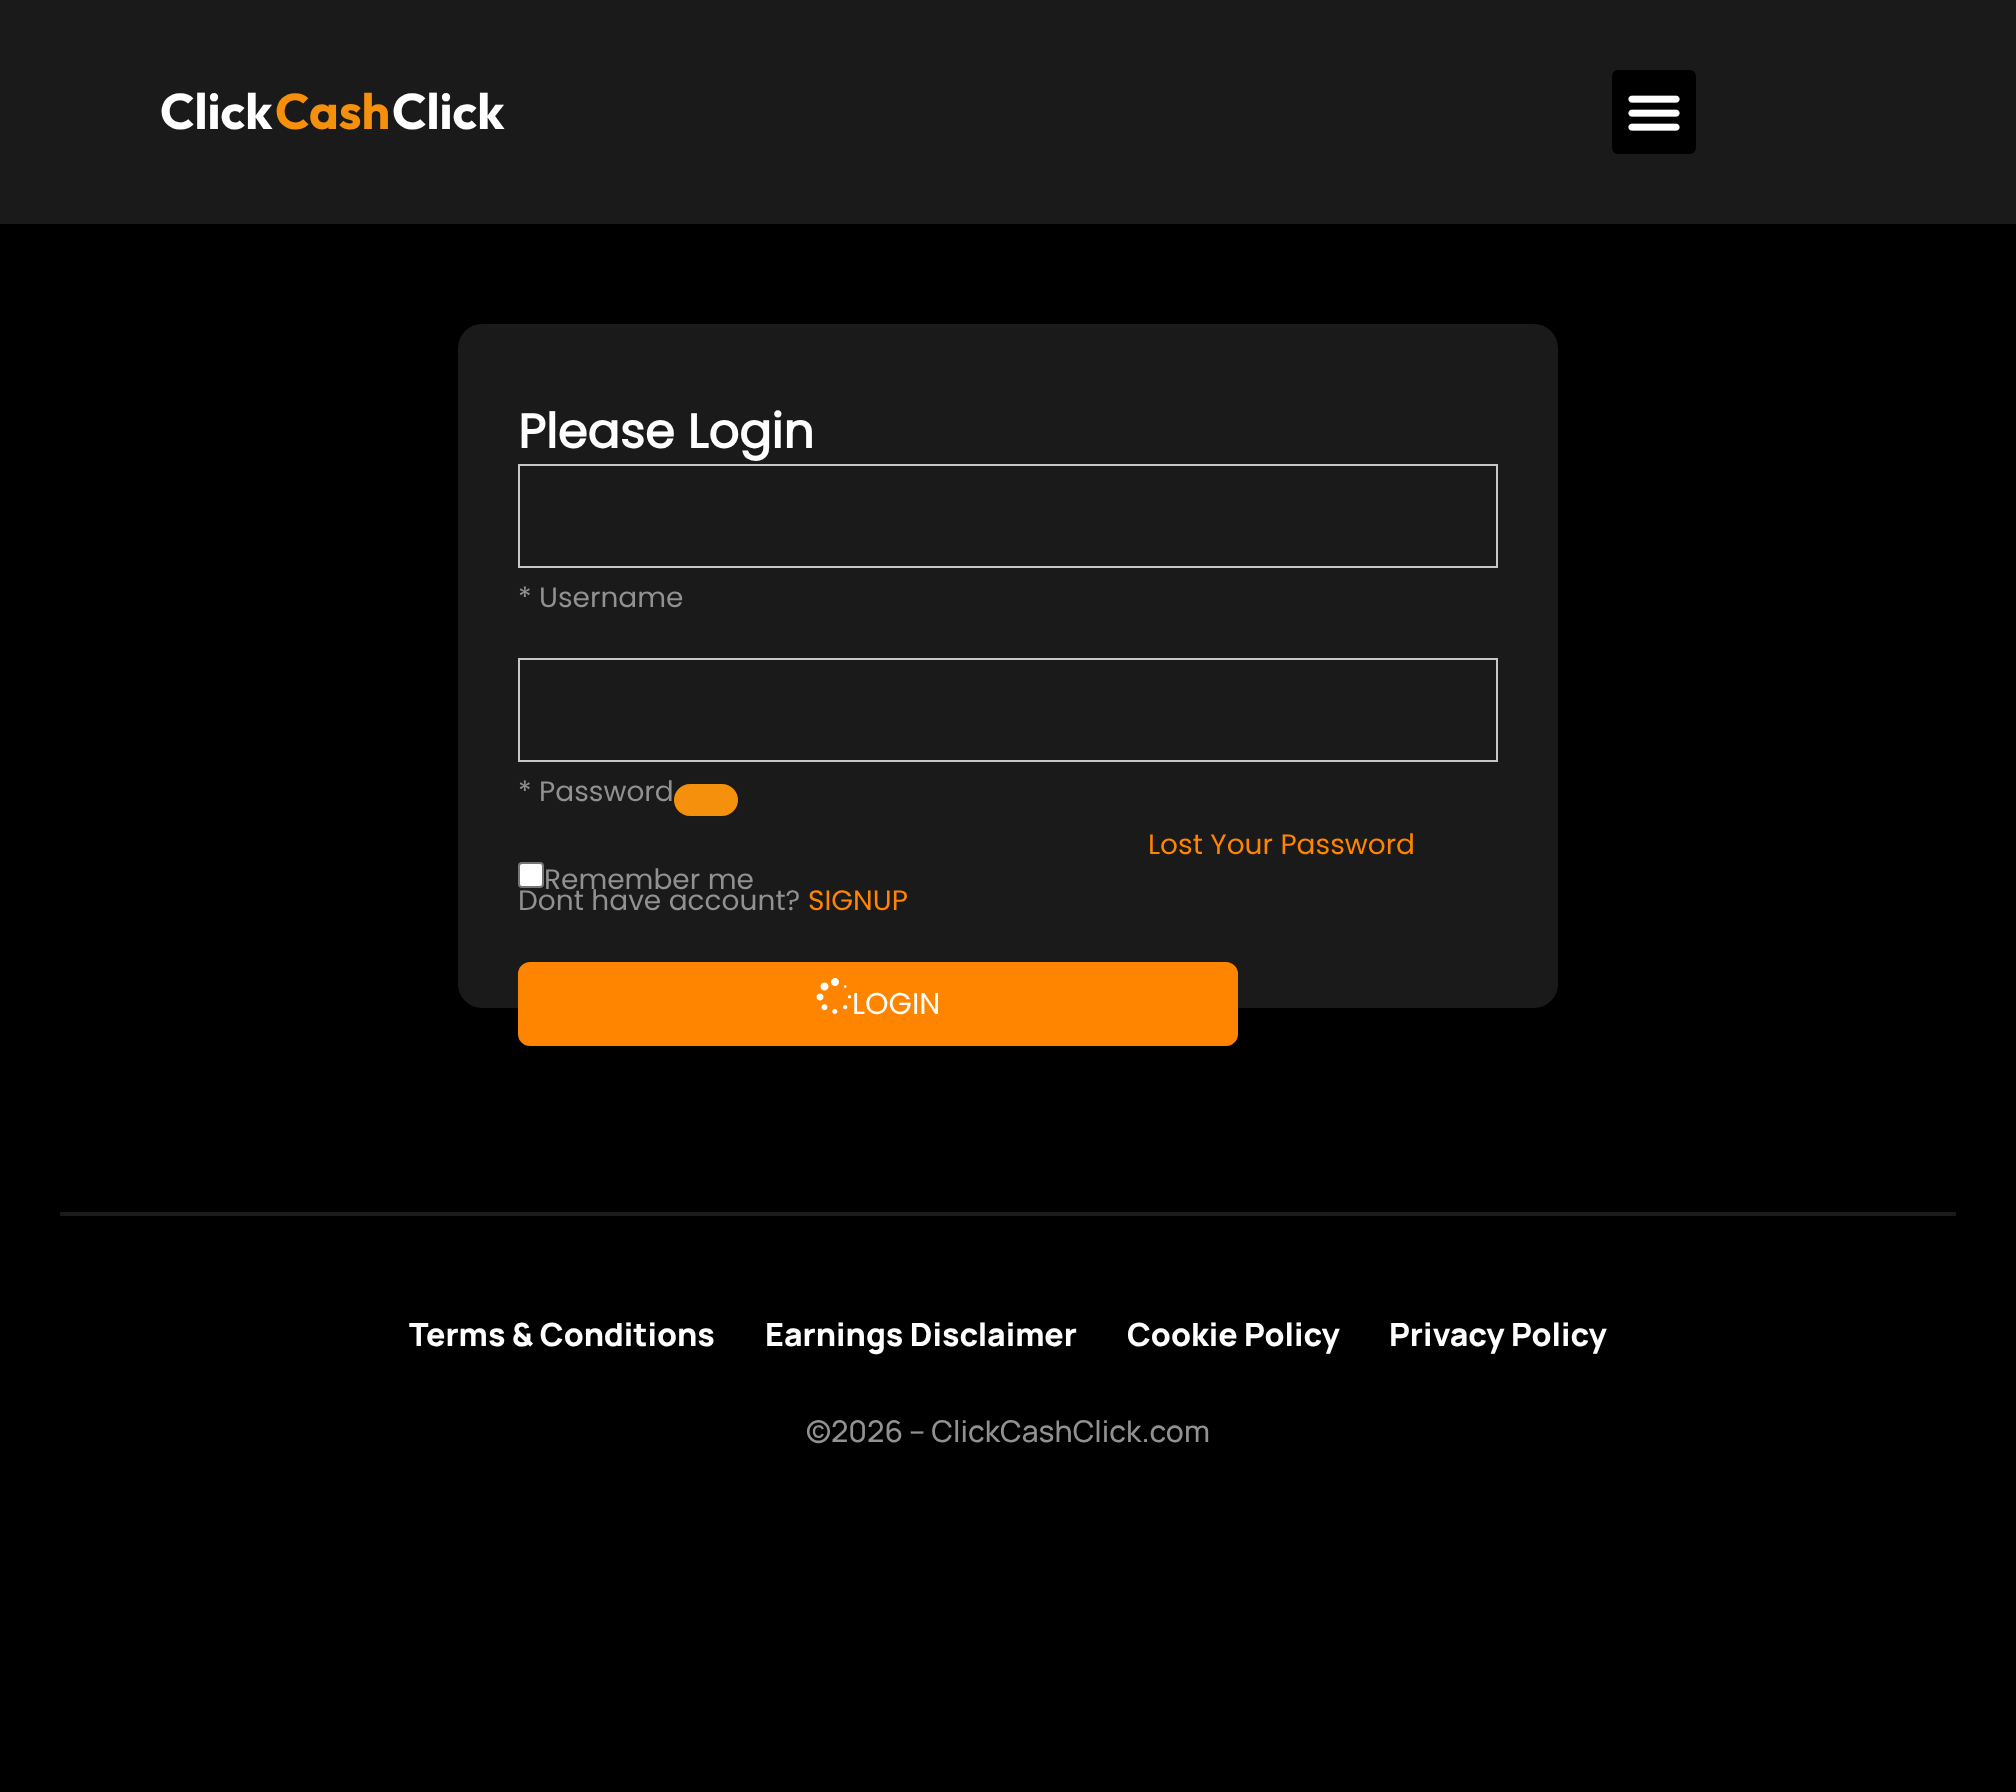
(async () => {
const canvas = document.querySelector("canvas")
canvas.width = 2016
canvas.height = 1792
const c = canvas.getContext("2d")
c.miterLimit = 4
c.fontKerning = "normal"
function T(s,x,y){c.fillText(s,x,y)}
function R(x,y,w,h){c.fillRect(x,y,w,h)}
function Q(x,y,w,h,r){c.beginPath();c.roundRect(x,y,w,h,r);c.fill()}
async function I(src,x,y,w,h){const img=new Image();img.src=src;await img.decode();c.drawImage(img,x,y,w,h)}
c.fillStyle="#000"
R(0,0,2016,1792)
c.fillStyle="#1a1a1a"
R(0,0,2016,224)
c.font="bold 50px Outfit"
c.fillStyle="#fff"
T("Click",160,129)
c.fillStyle="#f5900d"
T("Cash",275,129)
c.fillStyle="#fff"
T("Click",392,129)
c.fillStyle="#000"
Q(1612,70,84,84,6)
await I("1.png",1628,95,52,36)
c.fillStyle="#1a1a1a"
Q(458,324,1100,684,24)
c.font="bold 48px Poppins"
c.fillStyle="#fff"
T("Please Login",518,448)
c.strokeStyle="#c7c7c7"
c.lineWidth=2
c.strokeRect(519,465,978,102)
c.font="28px Poppins"
c.fillStyle="#919191"
T("* Username",518,607)
c.strokeRect(519,659,978,102)
T("* Password",518,801)
c.fillStyle="#f5900d"
Q(674,784,64,32,16)
c.fillStyle="#fff"
c.beginPath()
c.roundRect(519,863,24,24,3)
c.fill()
c.strokeStyle="#767676"
c.stroke()
c.fillStyle="#919191"
T("Remember me",544,889)
c.fillStyle="#ff8400"
c.beginPath()
c.roundRect(519,963,718,82,11)
c.fill()
c.strokeStyle="#ff8400"
c.stroke()
await I("2.png",816,978,36,36)
c.font="30px Poppins"
c.fillStyle="#fff"
T("LOGIN",852,1014)
c.font="28px Poppins"
c.fillStyle="#ff8400"
T("Lost Your Password",1148,854)
c.fillStyle="#919191"
T("Dont have account?",518,910)
c.fillStyle="#ff8400"
T("SIGNUP",808,910)
c.fillStyle="#1a1a1a"
R(60,1212,1896,4)
c.font="800 32px Manrope"
c.fillStyle="#fff"
T("Terms & Conditions",409,1346)
T("Earnings Disclaimer",765,1346)
T("Cookie Policy",1127,1346)
T("Privacy Policy",1389,1346)
c.font="500 30px Manrope"
c.fillStyle="#919191"
T("©2026 – ClickCashClick.com",806,1442)
})()
